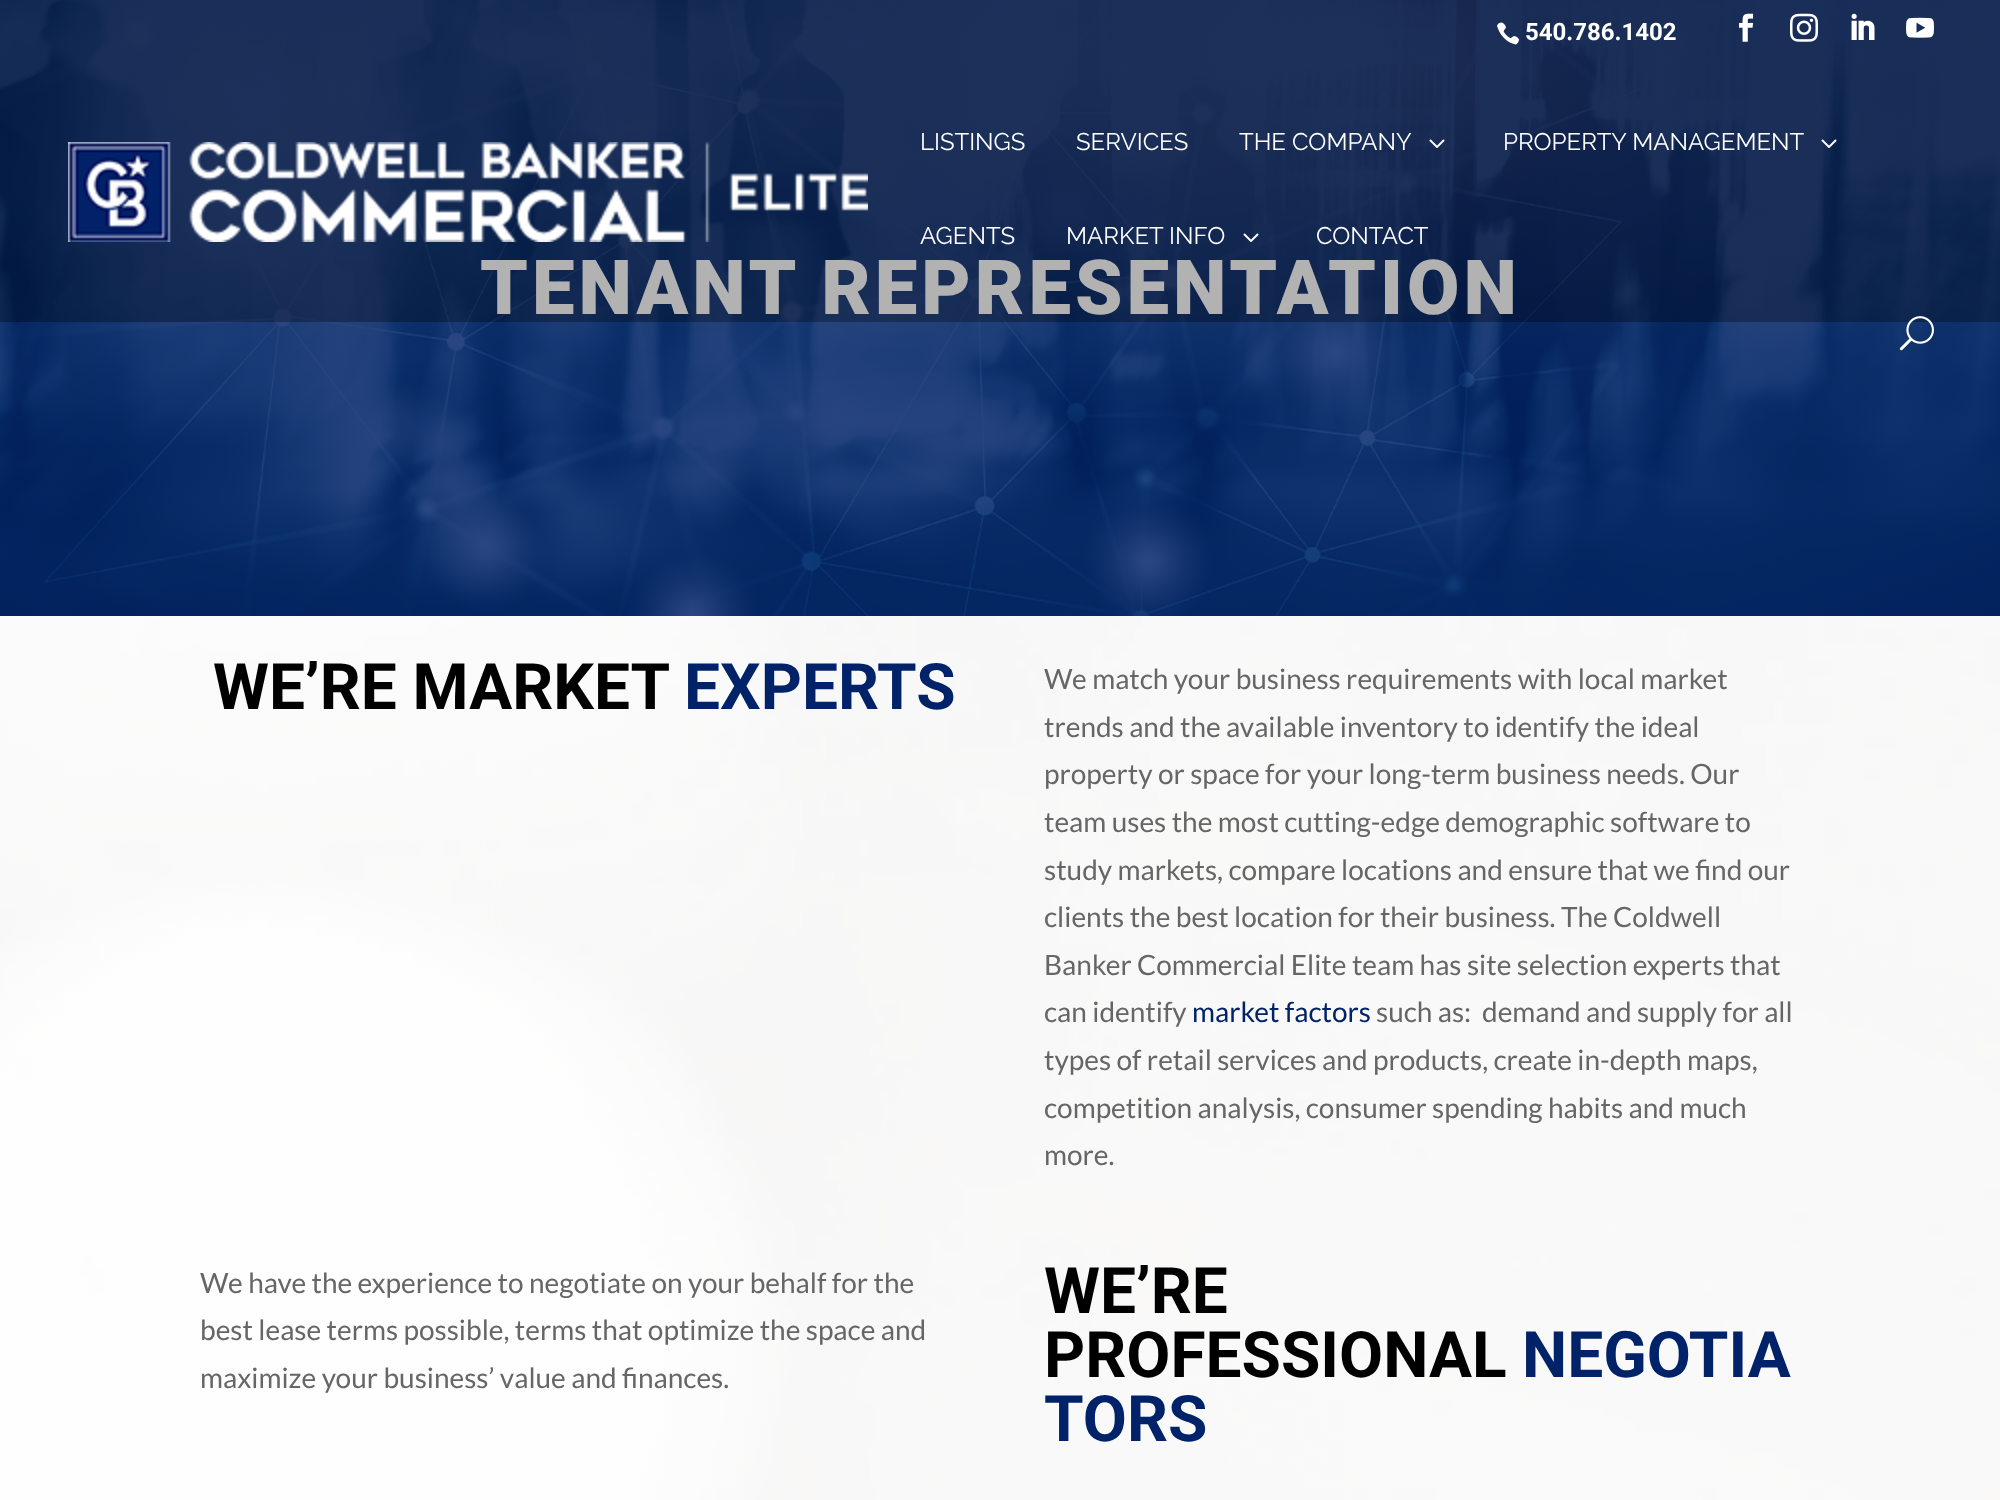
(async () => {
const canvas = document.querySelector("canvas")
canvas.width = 2000
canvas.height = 1500
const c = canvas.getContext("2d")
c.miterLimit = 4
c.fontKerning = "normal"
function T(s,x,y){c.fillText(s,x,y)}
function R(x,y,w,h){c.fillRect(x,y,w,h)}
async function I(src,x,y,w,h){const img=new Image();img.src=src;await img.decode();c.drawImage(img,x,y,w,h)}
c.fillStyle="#fff"
R(0,0,2000,1500)
await I("11.png",0,0,2000,616)
c.fillStyle="#0000004d"
R(0,0,2000,62)
await I("1.png",1497,22,22,23)
c.font="bold 24px Roboto"
c.fillStyle="#fff"
T("540.786.1402",1525,40)
await I("2.png",1739,13,15,29)
await I("3.png",1790,13,28,29)
await I("4.png",1851,13,24,27)
await I("5.png",1906,17,28,21)
c.letterSpacing="4px"
c.font="900 76px Roboto"
T("TENANT REPRESENTATION",480,314)
c.fillStyle="#0000004d"
R(0,62,2000,260)
await I("6.png",68,142,800,100)
c.letterSpacing="0px"
c.font="100 24px Raleway"
c.fillStyle="#fff"
T("LISTINGS",920,150)
T("SERVICES",1076,150)
T("THE COMPANY",1239,150)
await I("7.png",1429,139,16,9)
T("PROPERTY MANAGEMENT",1503,150)
await I("8.png",1821,139,16,9)
T("AGENTS",920,244)
T("MARKET INFO",1066,244)
await I("9.png",1243,233,16,9)
T("CONTACT",1316,244)
await I("10.png",1899,316,35,35)
await I("12.png",0,616,2000,884)
c.font="bold 64px Roboto"
c.fillStyle="#000"
T("WE’RE MARKET",213,709)
c.fillStyle="#002269"
T("EXPERTS",684,709)
c.font="28px Lato"
c.fillStyle="#666"
T("We match your business requirements with local market",1044,689)
T("trends and the available inventory to identify the ideal",1044,737)
T("property or space for your long-term business needs. Our",1044,784)
T("team uses the most cutting-edge demographic software to",1044,832)
T("study markets, compare locations and ensure that we find our",1044,880)
T("clients the best location for their business. The Coldwell",1044,927)
T("Banker Commercial Elite team has site selection experts that",1044,975)
T("can identify",1044,1022)
c.fillStyle="#002269"
T("market factors",1192,1022)
c.fillStyle="#666"
T("such as:  demand and supply for all",1376,1022)
T("types of retail services and products, create in-depth maps,",1044,1070)
T("competition analysis, consumer spending habits and much",1044,1118)
T("more.",1044,1165)
T("We have the experience to negotiate on your behalf for the",200,1293)
T("best lease terms possible, terms that optimize the space and",200,1340)
T("maximize your business’ value and finances.",200,1388)
c.font="bold 64px Roboto"
c.fillStyle="#000"
T("WE’RE",1044,1313)
T("PROFESSIONAL",1044,1377)
c.fillStyle="#002269"
T("NEGOTIA",1522,1377)
T("TORS",1044,1441)
})()
